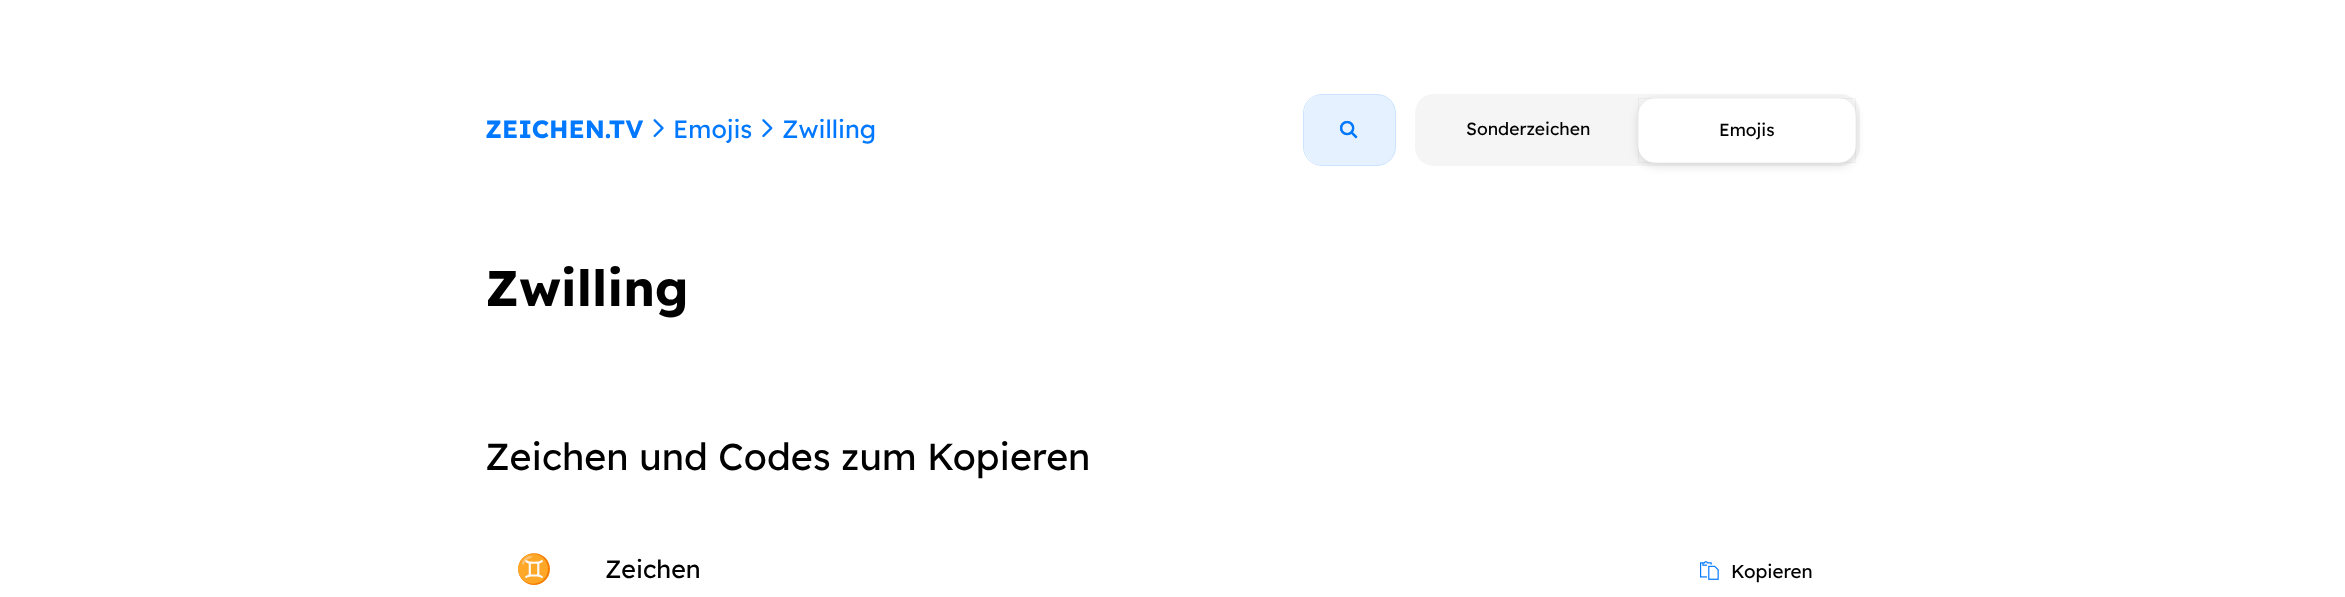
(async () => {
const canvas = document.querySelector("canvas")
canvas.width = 2345
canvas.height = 597
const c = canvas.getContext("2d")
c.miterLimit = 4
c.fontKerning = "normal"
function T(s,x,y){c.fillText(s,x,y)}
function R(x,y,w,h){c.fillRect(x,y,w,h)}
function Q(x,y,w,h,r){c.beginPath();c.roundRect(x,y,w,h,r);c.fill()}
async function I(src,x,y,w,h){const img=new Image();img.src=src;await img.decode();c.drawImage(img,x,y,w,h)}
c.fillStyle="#fff"
R(0,0,2345,597)
c.font="bold 25px Lexend"
c.fillStyle="#0078ff"
T("ZEICHEN.TV",485,138)
await I("1.png",653,119,11,19)
c.font="25px Lexend"
T("Emojis",673,138)
await I("2.png",762,119,11,19)
T("Zwilling",782,138)
c.beginPath()
c.roundRect(1303.5,94.5,92,71,18.5)
c.strokeStyle="#cce4ff"
c.stroke()
c.save()
c.beginPath()
c.roundRect(1304,95,91,70,18)
c.clip()
c.fillStyle="#0078ff1a"
Q(1304,95,94,70,19)
c.restore()
await I("3.png",1340,120,18,19)
await I("4.png",1340,120,18,19)
c.fillStyle="#f5f5f5"
Q(1415,94,445,72,19)
c.font="17.5px Lexend"
c.fillStyle="#000"
T("Sonderzeichen",1466,135)
c.fillStyle="#0000001f"
c.filter="blur(5px)"
c.beginPath()
c.roundRect(1638,101,218,65,18)
c.fill()
c.filter="none"
c.fillStyle="#fff"
Q(1638,98,218,65,18)
c.strokeStyle="#0000000a"
c.strokeRect(1638.5,98.5,217,64)
c.fillStyle="#000"
T("Emojis",1719,136)
c.font="bold 50px Lexend"
T("Zwilling",485,306)
c.font="37.5px Lexend"
T("Zeichen und Codes zum Kopieren",485,470)
c.font="29px Noto Color Emoji"
c.fillStyle="#0078ff"
T("♊",516,579)
c.font="25px Lexend"
c.fillStyle="#000"
T("Zeichen",605,578)
await I("5.png",1700,561,19,19)
c.font="18.75px Lexend"
T("Kopieren",1731,578)
})()
